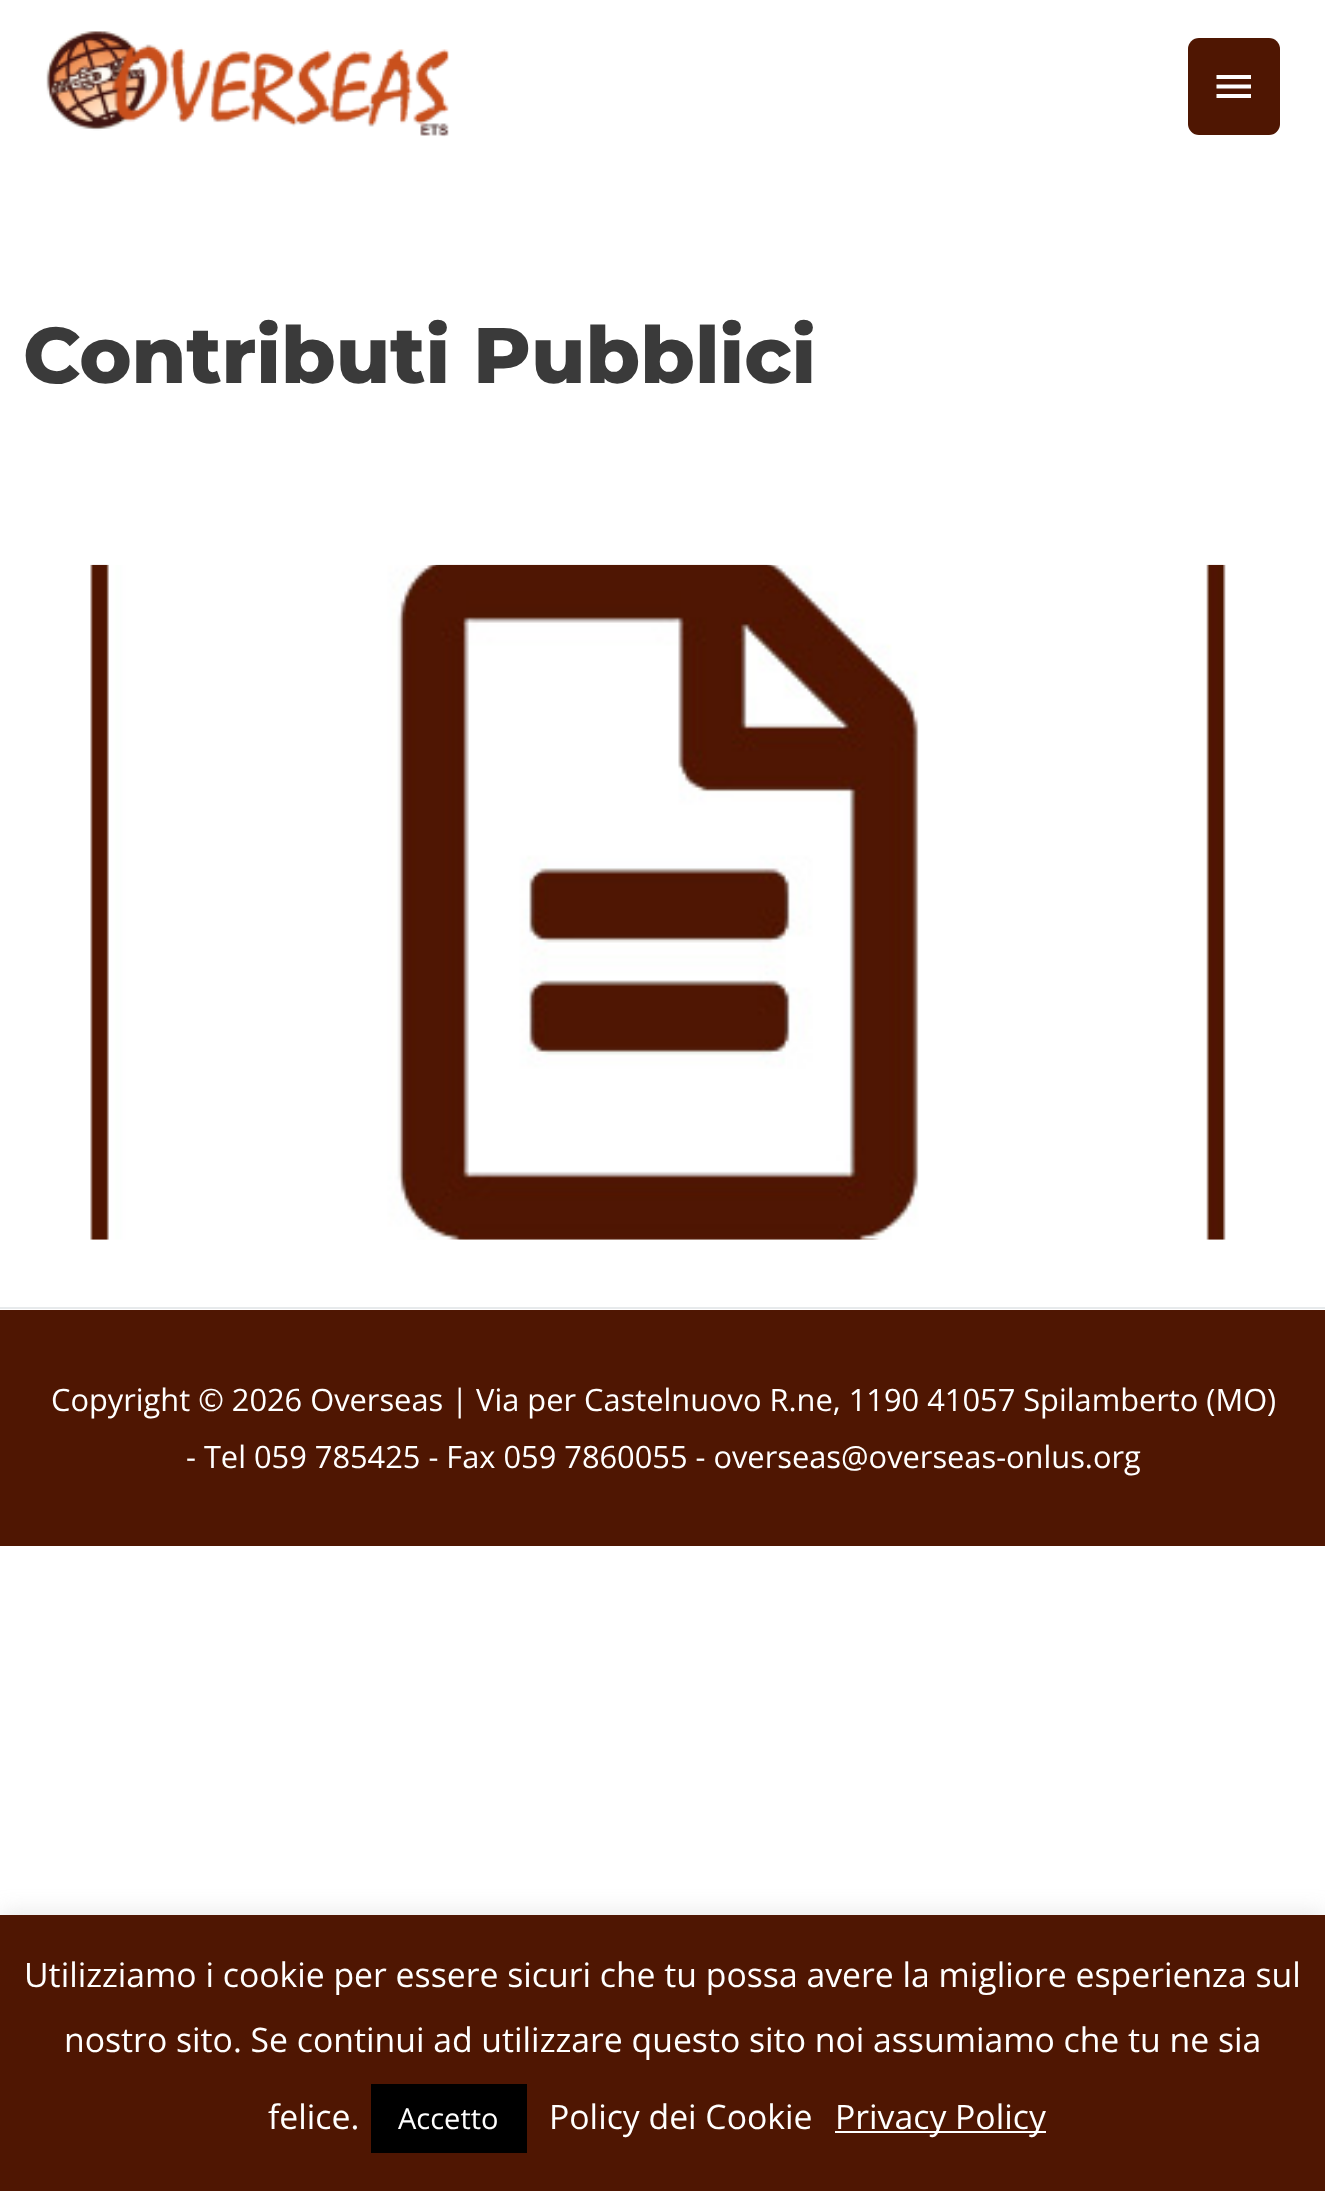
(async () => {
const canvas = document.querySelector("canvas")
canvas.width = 1325
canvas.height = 2191
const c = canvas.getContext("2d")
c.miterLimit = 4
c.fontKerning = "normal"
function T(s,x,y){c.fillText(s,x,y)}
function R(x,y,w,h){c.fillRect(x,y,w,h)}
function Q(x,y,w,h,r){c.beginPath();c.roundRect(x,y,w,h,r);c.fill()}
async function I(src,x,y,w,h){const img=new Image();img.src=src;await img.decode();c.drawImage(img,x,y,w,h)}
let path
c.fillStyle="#fff"
R(0,0,1325,2191)
await I("1.png",46,31,403,106)
c.fillStyle="#4f1602"
Q(1188,38,92,97,11)
c.fillStyle="#fff"
path = new Path2D("M1216.5 75h34.5v4h-34.5zm0 13.5v-4h34.5v4zm0 9.5v-4h34.5v4z")
c.fill(path)
c.font="100 78.75px Montserrat"
c.fillStyle="#3a3a3a"
T("Contributi Pubblici",23,383)
await I("2.png",90,564,1136,676)
c.fillStyle="#e7eaec"
R(0,1307,1325,2)
c.fillStyle="#4f1602"
R(0,1310,1325,236)
c.font="30.8px Open Sans"
c.fillStyle="#fff"
T("Copyright © 2026 Overseas | Via per Castelnuovo R.ne, 1190 41057 Spilamberto (MO)",51,1411)
T("- Tel 059 785425 - Fax 059 7860055 - overseas@overseas-onlus.org",186,1468)
c.fillStyle="#acabab4d"
c.filter="blur(11px)"
c.beginPath()
c.rect(0,1913,1325,276)
c.fill()
c.filter="none"
c.fillStyle="#4f1602"
R(0,1915,1325,276)
c.font="33.75px Open Sans"
c.fillStyle="#fff"
T("Utilizziamo i cookie per essere sicuri che tu possa avere la migliore esperienza sul",24,1987)
T("nostro sito. Se continui ad utilizzare questo sito noi assumiamo che tu ne sia",64,2052)
T("felice.",268,2129)
c.fillStyle="#000"
R(371,2084,156,69)
c.font="29px Open Sans"
c.fillStyle="#fff"
T("Accetto",398,2129)
c.font="33.75px Open Sans"
T("Policy dei Cookie",549,2129)
R(835,2131,211,2)
T("Privacy Policy",835,2129)
})()
